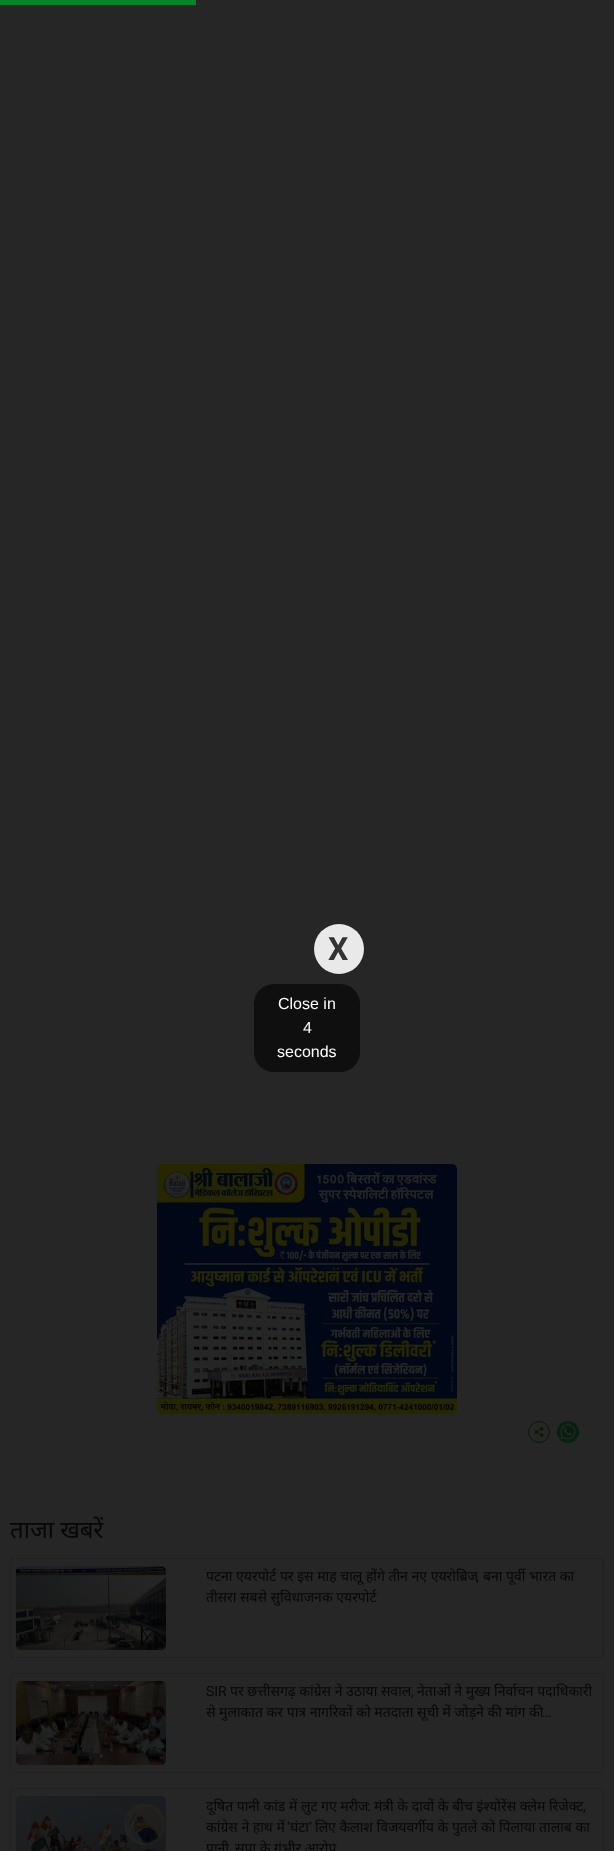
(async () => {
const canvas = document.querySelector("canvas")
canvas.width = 614
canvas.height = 1851
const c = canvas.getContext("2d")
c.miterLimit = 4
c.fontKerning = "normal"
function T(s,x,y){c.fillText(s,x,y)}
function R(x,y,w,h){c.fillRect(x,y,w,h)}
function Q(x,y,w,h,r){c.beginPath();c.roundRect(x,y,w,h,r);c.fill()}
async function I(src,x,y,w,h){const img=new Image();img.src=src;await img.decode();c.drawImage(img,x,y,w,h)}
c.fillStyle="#262626"
R(0,0,614,1851)
c.fillStyle="#e9e9e9"
c.beginPath()
c.arc(339,949,25,0,7)
c.fill()
c.font="bold 32px Roboto"
c.fillStyle="#333"
T("X",328,960)
c.fillStyle="#0f0f0f"
Q(254,984,106,88,20)
c.font="16px Liberation Sans"
c.fillStyle="#fff"
T("Close in",278,1009)
T("4",303,1033)
T("seconds",277,1057)
c.fillStyle="#078429"
R(0,0,196,5)
await I("1.png",157,1164,300,250)
await I("2.png",534,1427,10,10)
c.beginPath()
c.arc(539,1432,10.5,0,7)
c.strokeStyle="#0e1800"
c.stroke()
c.fillStyle="#06200f"
c.beginPath()
c.arc(568,1432,11,0,7)
c.fill()
await I("3.png",560,1424,16,16)
c.font="24px Noto Sans"
c.fillStyle="#070708"
T("ताजा खबरें",10,1538)
c.beginPath()
c.roundRect(10.5,1558.5,593,99,3.5)
c.strokeStyle="#212121"
c.stroke()
await I("4.png",16,1566,150,84)
c.font="14px Noto Sans"
T("पटना एयरपोर्ट पर इस माह चालू होंगे तीन नए एयरोब्रिज",206,1581)
c.font="14px Roboto"
T(",",476,1581)
c.font="14px Noto Sans"
T("बना पूर्वी भारत का",483,1581)
c.save()
c.beginPath()
c.rect(206,1566,392,42)
c.clip()
T("तीसरा सबसे सुविधाजनक एयरपोर्ट",206,1602)
c.restore()
c.beginPath()
c.roundRect(10.5,1673.5,593,99,3.5)
c.stroke()
await I("5.png",16,1681,150,84)
c.font="14px Roboto"
T("SIR",206,1696)
c.font="14px Noto Sans"
T("पर छत्तीसगढ़ कांग्रेस ने उठाया सवाल",230,1696)
c.font="14px Roboto"
T(",",411,1696)
c.font="14px Noto Sans"
T("नेताओं ने मुख्य निर्वाचन पदाधिकारी",417,1696)
c.save()
c.beginPath()
c.rect(206,1681,392,42)
c.clip()
T("से मुलाकात कर पात्र नागरिकों को मतदाता सूची में जोड़ने की मांग की",206,1717)
c.restore()
c.font="14px Roboto"
T("…",542,1717)
c.beginPath()
c.roundRect(10.5,1788.5,593,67,3.5)
c.stroke()
await I("6.png",16,1796,150,55)
c.font="14px Noto Sans"
T("दूषित पानी कांड में लुट गए मरीज",206,1811)
c.font="14px Roboto"
T(":",367,1811)
c.font="14px Noto Sans"
T("मंत्री के दावों के बीच इंश्योरेंस क्लेम रिजेक्ट",374,1811)
c.font="14px Roboto"
T(",",583,1811)
c.save()
c.beginPath()
c.rect(206,1796,392,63)
c.clip()
c.font="14px Noto Sans"
T("कांग्रेस ने हाथ में",206,1832)
c.restore()
T("‘",287,1832)
c.font="14px Noto Sans"
T("घंटा",290,1832)
T("लिए कैलाश विजयवर्गीय के पुतले को पिलाया तालाब का",315,1832)
c.font="14px Roboto"
T("’",309,1832)
c.font="14px Noto Sans"
T("पानी",206,1853)
T("सपा के गंभीर आरोप",235,1853)
})()
